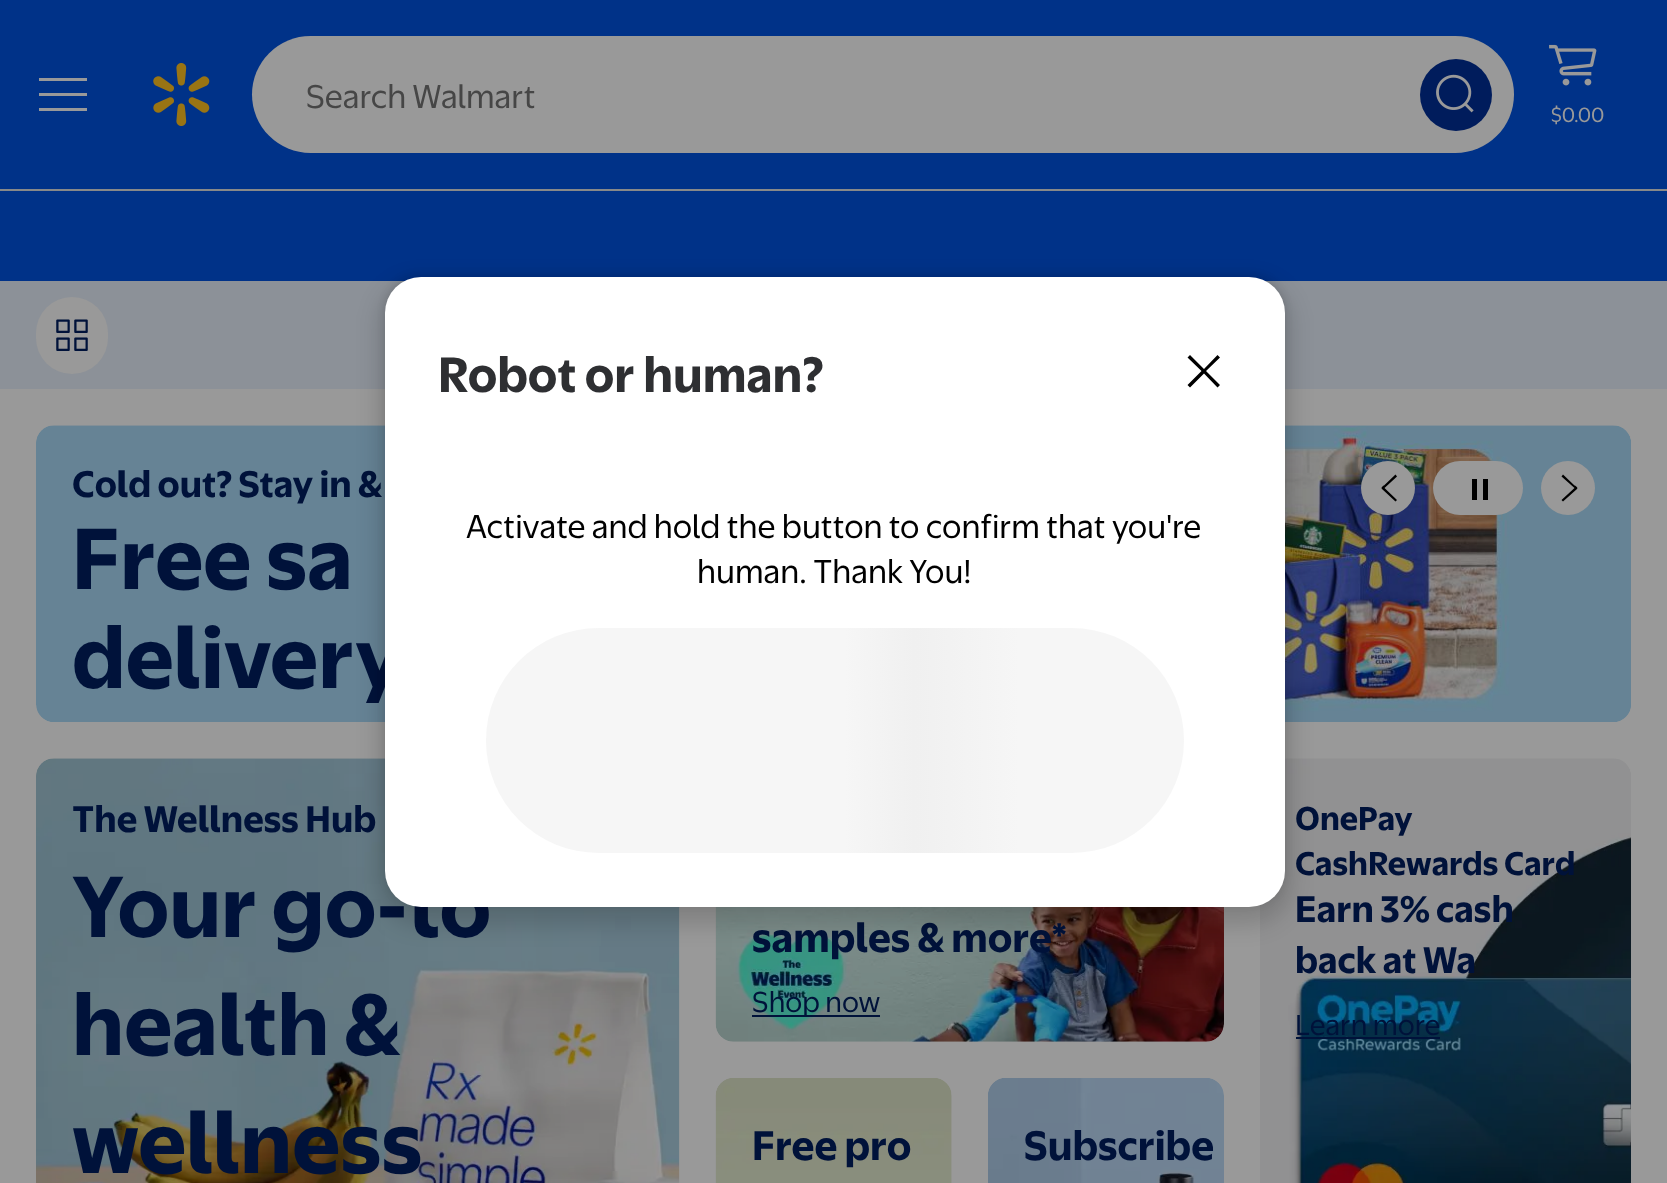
(async () => {
const canvas = document.querySelector("canvas")
canvas.width = 1667
canvas.height = 1183
const c = canvas.getContext("2d")
c.miterLimit = 4
c.fontKerning = "normal"
function T(s,x,y){c.fillText(s,x,y)}
function R(x,y,w,h){c.fillRect(x,y,w,h)}
function Q(x,y,w,h,r){c.beginPath();c.roundRect(x,y,w,h,r);c.fill()}
async function I(src,x,y,w,h){const img=new Image();img.src=src;await img.decode();c.drawImage(img,x,y,w,h)}
let gradient, path
c.fillStyle="#999"
R(0,0,1667,1183)
c.fillStyle="#003288"
R(0,0,1667,189)
c.fillStyle="#999"
path = new Path2D("M87 81h-48v-3h48zm0 15h-48v-3h48zm-48 15h48v-3h-48z")
c.fill(path)
await I("1.png",153,63,57,63)
Q(252,36,1262,117,58.5)
c.font="36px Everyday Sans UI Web"
c.fillStyle="#464646"
T("Search Walmart",306,108)
c.fillStyle="#001c5c"
c.beginPath()
c.arc(1456,95,36,0,7)
c.fill()
await I("2.png",1436,74,38,39)
await I("3.png",1549,44,48,42)
c.font="22.5px Everyday Sans UI Web"
c.fillStyle="#999"
T("$0.00",1551,122)
c.fillStyle="#003288"
R(0,191,1667,90)
c.fillStyle="#888989"
R(0,189,1667,2)
c.fillStyle="#8c9198"
R(0,281,1667,108)
c.fillStyle="#999"
Q(36,297,72,77,36)
await I("4.png",56,319,32,32)
await I("5.png",36,425,1595,297)
c.font="bold 40.5px Everyday Sans UI Web"
c.fillStyle="#00123a"
T("Cold out? Stay in &",72,497)
c.font="bold 94.5px Everyday Sans UI Web"
T("Free sa",72,589)
T("delivery",72,688)
c.fillStyle="#999"
c.beginPath()
c.arc(1388,488,27,0,7)
c.fill()
c.fillStyle="#000"
path = new Path2D("M1382 489l13.5 12.5l1.5-1.5l-12.5-12l12.5-11.5l-1.5-2l-11.5 11c-.5 0-3.5 2-2 3.5z")
c.fill(path)
c.fillStyle="#999"
Q(1433,461,90,54,27)
c.fillStyle="#000"
R(1472,479,5,21)
R(1483,479,5,21)
c.fillStyle="#999"
c.beginPath()
c.arc(1568,488,27,0,7)
c.fill()
c.fillStyle="#000"
path = new Path2D("M1577 489l-14 12.5l-1.5-1.5l13-12l-13-11.5l1.5-2l11.5 11c.5 0 4 2 2.5 3.5z")
c.fill(path)
await I("6.png",36,758,644,425)
c.font="bold 40.5px Everyday Sans UI Web"
c.fillStyle="#00123a"
T("The Wellness Hub",72,832)
c.font="bold 94.5px Everyday Sans UI Web"
T("Your go-to",72,937)
T("health &",72,1055)
T("wellness",72,1173)
await I("7.png",715,907,509,135)
c.font="bold 45px Everyday Sans UI Web"
T("samples & more*",752,952)
R(752,1015,128,2)
c.font="31.5px Everyday Sans UI Web"
T("Shop now",752,1012)
await I("8.png",715,1078,237,105)
c.font="bold 45px Everyday Sans UI Web"
T("Free pro",752,1160)
await I("9.png",988,1078,236,105)
T("Subscribe",1024,1160)
await I("10.png",1260,758,371,425)
c.font="bold 36px Everyday Sans UI Web"
T("OnePay",1295,830)
T("CashRewards Card",1295,875)
c.font="bold 40.5px Everyday Sans UI Web"
T("Earn 3% cash",1295,922)
T("back at Wa",1295,973)
c.font="31.5px Everyday Sans UI Web"
T("Learn more",1295,1035)
R(1296,1037,144,2)
c.fillStyle="#0000001a"
c.filter="blur(4.5px)"
c.beginPath()
c.roundRect(385,275,900,630,36)
c.fill()
c.filter="none"
c.fillStyle="#00000026"
c.filter="blur(11px)"
c.beginPath()
c.roundRect(378,281,914,644,43)
c.fill()
c.filter="none"
c.fillStyle="#fff"
Q(385,277,900,630,36)
c.font="bold 54px Everyday Sans UI Web"
c.fillStyle="#2e2f32"
T("Robot or human?",438,392)
c.fillStyle="#000"
path = new Path2D("M1204 373.5l13.5 14l2.5-2.5l-14-14l14-13.5l-2.5-2.5l-13.5 14l-14-14l-2.5 2.5l14 13.5l-14 14l2.5 2.5z")
c.fill(path)
c.font="36px Everyday Sans UI Web"
T("Activate and hold the button to confirm that you're",466,538)
T("human. Thank You!",697,583)
gradient = c.createLinearGradient(91,740,789,740)
gradient.addColorStop(.08,"#f6f6f6")
gradient.addColorStop(.18,"#f0f0f0")
gradient.addColorStop(.33,"#f6f6f6")
c.fillStyle = gradient
c.beginPath()
c.roundRect(486,628,304,225,[112.5,0,0,112.5])
c.fill()
gradient = c.createLinearGradient(789,740,1486,740)
gradient.addColorStop(.08,"#f6f6f6")
gradient.addColorStop(.18,"#f0f0f0")
gradient.addColorStop(.33,"#f6f6f6")
c.fillStyle = gradient
c.beginPath()
c.roundRect(790,628,394,225,[0,112.5,112.5,0])
c.fill()
})()
